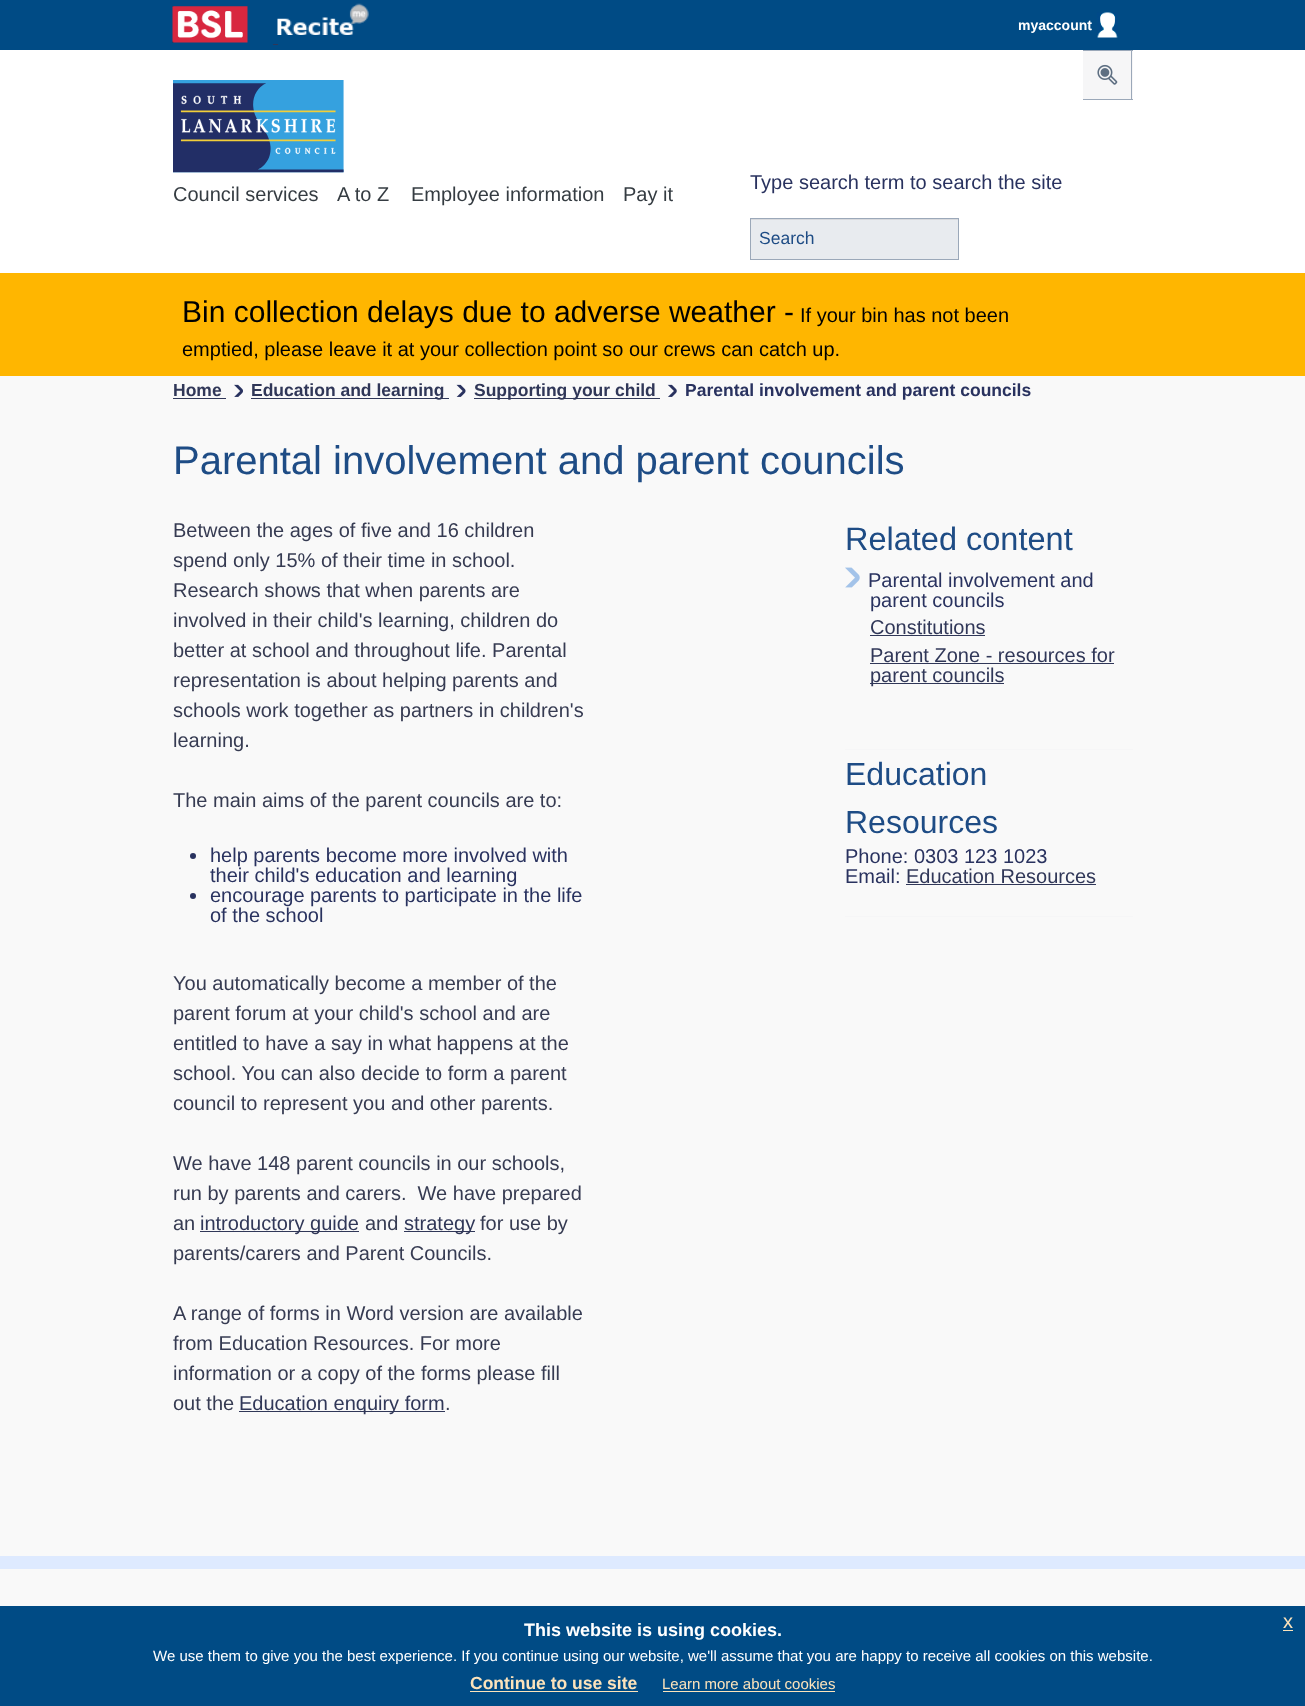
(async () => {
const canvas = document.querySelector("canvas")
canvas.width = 1305
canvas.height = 1706
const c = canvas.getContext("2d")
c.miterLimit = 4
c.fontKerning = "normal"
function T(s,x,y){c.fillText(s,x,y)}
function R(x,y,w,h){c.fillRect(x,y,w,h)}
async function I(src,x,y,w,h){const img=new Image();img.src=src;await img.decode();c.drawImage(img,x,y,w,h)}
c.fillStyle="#f9f9f9"
R(0,0,1305,1706)
c.fillStyle="#004b85"
R(0,0,1305,50)
await I("1.png",172,6,76,37)
await I("2.png",277,3,92,32)
c.font="bold 14px Liberation Sans"
c.fillStyle="#fff"
T("myaccount",1018,30)
await I("3.png",1097,12,21,26)
c.fillStyle="#303758"
R(273,44,5,1)
c.fillStyle="#fff"
R(0,50,1305,223)
await I("4.png",173,80,171,93)
c.font="20px Liberation Sans"
c.fillStyle="#353c42"
T("Council services",173,201)
T("A to Z",337,201)
T("Employee information",411,201)
T("Pay it",623,201)
c.fillStyle="#f6f6f7"
R(1083,51,50,48)
c.fillStyle="#9ba8b9"
R(1083,50,50,1)
R(1131,50,1,50)
R(1083,99,50,1)
await I("5.png",1097,64,21,21)
c.fillStyle="#29325f"
T("Type search term to search the site",750,189)
c.fillStyle="#e8ebef"
R(751,220,207,39)
c.fillStyle="#d7d9dd"
R(751,219,207,1)
c.strokeStyle="#9ba8b9"
c.strokeRect(750.5,218.5,208,41)
c.font="17.5px Liberation Sans"
c.fillStyle="#1e4c85"
T("Search",759,244)
c.fillStyle="#ffb600"
R(0,273,1305,103)
c.font="30px Liberation Sans"
c.fillStyle="#000"
T("Bin collection delays due to adverse weather -",182,322)
c.font="20px Liberation Sans"
T("If your bin has not been",800,322)
T("emptied, please leave it at your collection point so our crews can catch up.",182,356)
c.font="bold 17.5px Liberation Sans"
c.fillStyle="#303758"
T("Home",173,396)
R(173,398,53,1)
await I("6.png",234,384,9,13)
R(251,398,198,1)
T("Education and learning",251,396)
await I("7.png",456,384,10,13)
R(474,398,186,1)
T("Supporting your child",474,396)
await I("8.png",667,384,10,13)
c.fillStyle="#29325f"
T("Parental involvement and parent councils",685,396)
c.font="40px Liberation Sans"
c.fillStyle="#1e4c85"
T("Parental involvement and parent councils",173,474)
c.font="20px Liberation Sans"
c.fillStyle="#363b52"
T("Between the ages of five and 16 children",173,537)
T("spend only 15% of their time in school.",173,567)
T("Research shows that when parents are",173,597)
T("involved in their child's learning, children do",173,627)
T("better at school and throughout life. Parental",173,657)
T("representation is about helping parents and",173,687)
T("schools work together as partners in children's",173,717)
T("learning.",173,747)
T("The main aims of the parent councils are to:",173,807)
c.fillStyle="#29325f"
c.beginPath()
c.arc(193,856,3,0,7)
c.fill()
T("help parents become more involved with",210,862)
T("their child's education and learning",210,882)
c.beginPath()
c.arc(193,896,3,0,7)
c.fill()
T("encourage parents to participate in the life",210,902)
T("of the school",210,922)
c.fillStyle="#363b52"
T("You automatically become a member of the",173,990)
T("parent forum at your child's school and are",173,1020)
T("entitled to have a say in what happens at the",173,1050)
T("school. You can also decide to form a parent",173,1080)
T("council to represent you and other parents.",173,1110)
T("We have 148 parent councils in our schools,",173,1170)
T("run by parents and carers.  We have prepared",173,1200)
T("an",173,1230)
c.fillStyle="#303758"
R(200,1231,159,1)
T("introductory guide",200,1230)
c.fillStyle="#363b52"
T("and",365,1230)
c.fillStyle="#303758"
R(404,1231,71,1)
T("strategy",404,1230)
c.fillStyle="#363b52"
T("for use by",480,1230)
T("parents/carers and Parent Councils.",173,1260)
T("A range of forms in Word version are available",173,1320)
T("from Education Resources. For more",173,1350)
T("information or a copy of the forms please fill",173,1380)
T("out the",173,1410)
c.fillStyle="#303758"
R(239,1411,206,1)
T("Education enquiry form",239,1410)
c.fillStyle="#363b52"
T(".",445,1410)
c.fillStyle="#f6f6f7"
R(845,749,288,1)
c.font="32.5px Liberation Sans"
c.fillStyle="#1e4c85"
T("Related content",845,550)
await I("9.png",845,567,15,21)
c.font="20px Liberation Sans"
c.fillStyle="#29325f"
T("Parental involvement and",868,587)
T("parent councils",870,607)
c.fillStyle="#303758"
T("Constitutions",870,634)
R(870,635,115,1)
T("Parent Zone - resources for",870,662)
R(870,663,244,1)
R(870,683,134,1)
T("parent councils",870,682)
c.fillStyle="#f6f6f7"
R(845,916,288,1)
c.font="32px Liberation Sans"
c.fillStyle="#1e4c85"
T("Education",845,785)
T("Resources",845,833)
c.font="20px Liberation Sans"
c.fillStyle="#29325f"
T("Phone: 0303 123 1023",845,863)
T("Email:",845,883)
c.fillStyle="#303758"
T("Education Resources",906,883)
R(906,884,190,1)
c.fillStyle="#deeaff"
R(0,1556,1305,13)
c.fillStyle="#004b85"
R(0,1606,1305,100)
c.font="bold 18px Liberation Sans"
c.fillStyle="#fff"
T("This website is using cookies.",524,1636)
c.font="20px Liberation Sans"
c.fillStyle="#fce3bb"
T("x",1283,1628)
R(1283,1630,10,1)
c.font="15px Liberation Sans"
c.fillStyle="#fff"
T("We use them to give you the best experience. If you continue using our website, we'll assume that you are happy to receive all cookies on this website.",153,1661)
c.font="bold 17.5px Liberation Sans"
c.fillStyle="#fce3bb"
T("Continue to use site",470,1689)
R(470,1691,168,1)
c.font="15px Liberation Sans"
T("Learn more about cookies",662,1689)
R(663,1691,172,1)
})()
